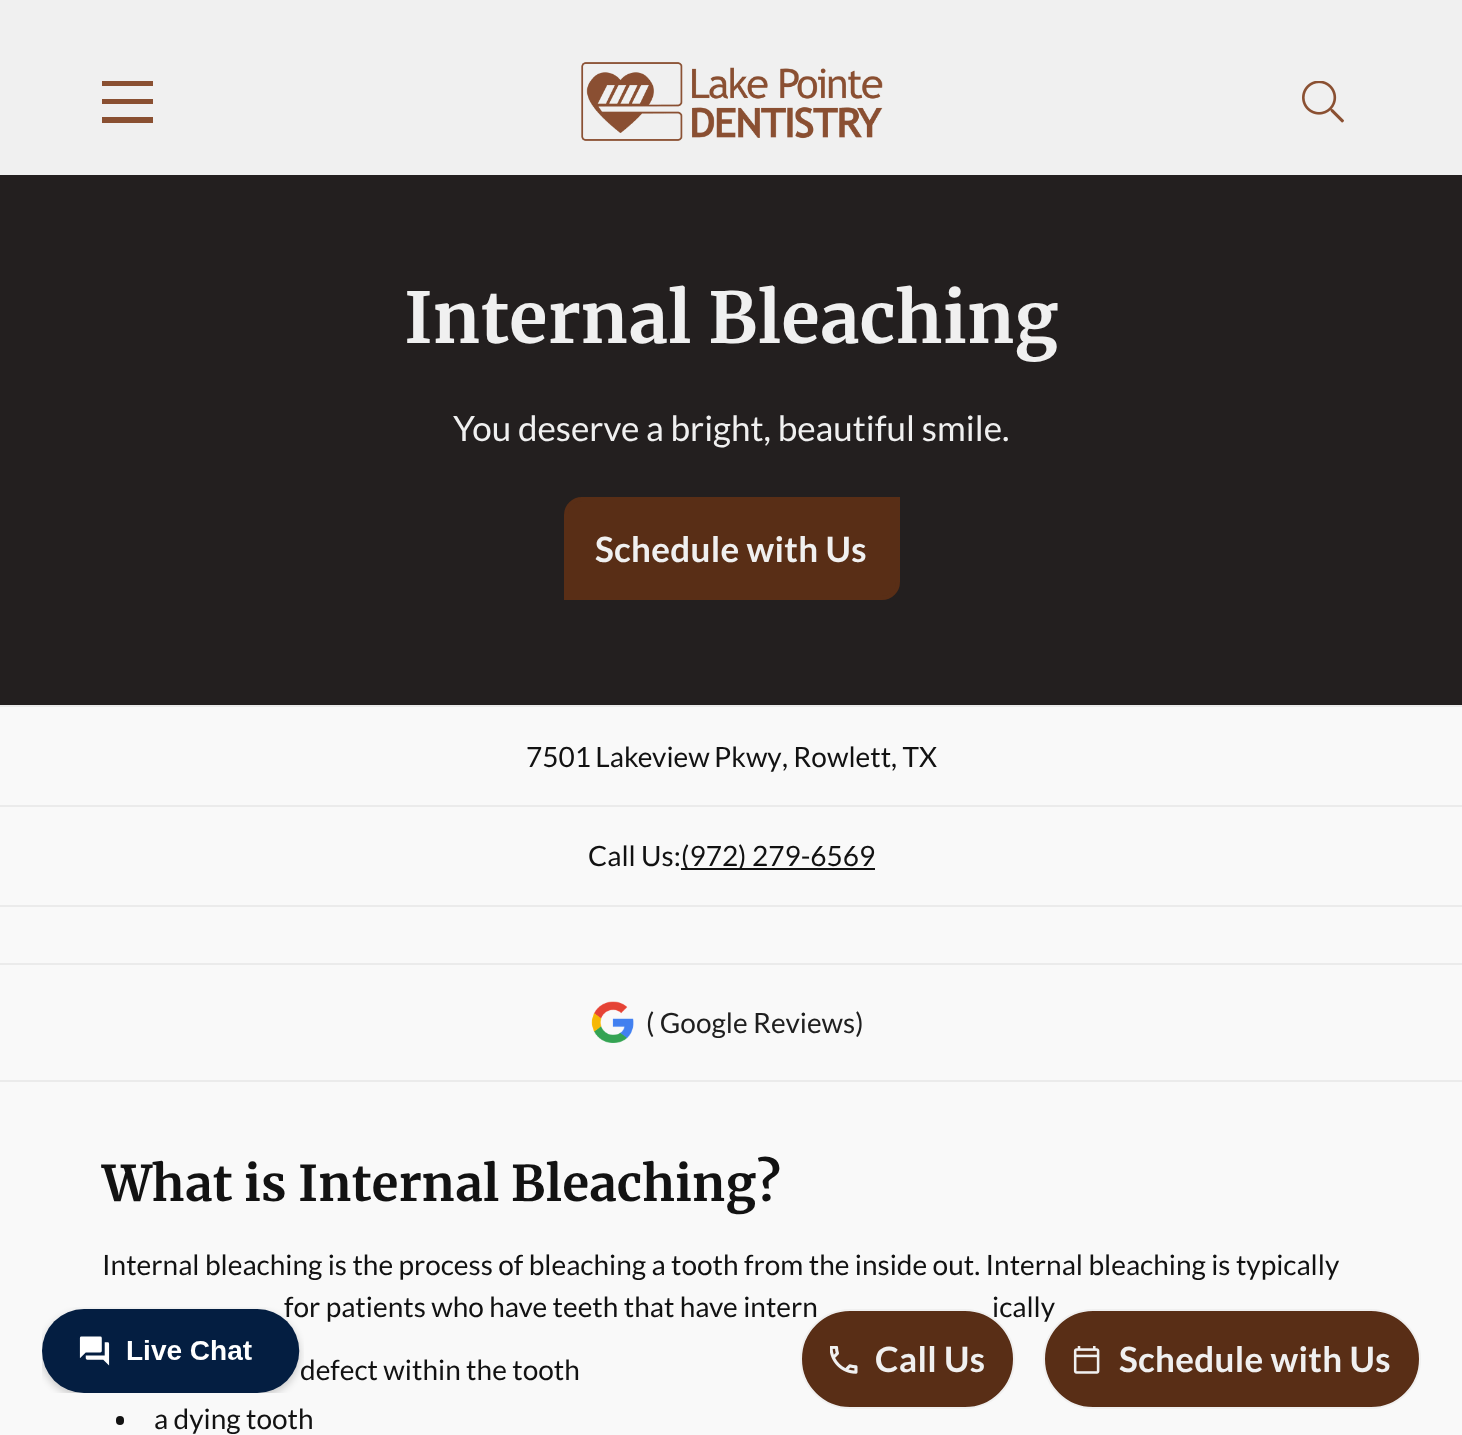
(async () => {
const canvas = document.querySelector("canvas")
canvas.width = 1462
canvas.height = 1435
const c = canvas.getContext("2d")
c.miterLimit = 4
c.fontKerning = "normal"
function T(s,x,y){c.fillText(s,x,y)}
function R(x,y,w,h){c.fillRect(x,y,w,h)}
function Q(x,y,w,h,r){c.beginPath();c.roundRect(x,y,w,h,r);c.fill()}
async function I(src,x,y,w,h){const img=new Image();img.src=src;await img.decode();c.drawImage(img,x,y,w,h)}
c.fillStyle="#f9f9f9"
R(0,0,1462,1435)
c.fillStyle="#f0f0f0"
R(0,0,1462,175)
c.fillStyle="#8a5032"
R(102,81,51,5)
R(102,99,51,5)
R(102,117,51,6)
await I("1.png",581,62,302,79)
await I("2.png",1302,81,42,42)
c.fillStyle="#231f1f"
R(0,175,1462,530)
c.font="bold 70px Merriweather"
c.fillStyle="#f0f0f0"
T("Internal Bleaching",404,343)
c.font="35px Lato"
T("You deserve a bright, beautiful smile.",453,441)
c.fillStyle="#592e16"
c.beginPath()
c.roundRect(566,499,332,99,[16,0,16,0])
c.fill()
c.strokeStyle="#592e16"
c.lineWidth=4
c.stroke()
c.letterSpacing="0.3px"
c.font="bold 35px Lato"
c.fillStyle="#f0f0f0"
T("Schedule with Us",595,562)
c.fillStyle="#ebebeb"
R(0,705,1462,2)
R(0,1080,1462,2)
c.letterSpacing="0px"
c.wordSpacing="-1px"
c.font="28px Lato"
c.fillStyle="#121212"
T("7501 Lakeview Pkwy",526,767)
c.wordSpacing="0px"
T(", Rowlett, TX",782,767)
c.fillStyle="#ebebeb"
R(0,805,1462,2)
c.fillStyle="#121212"
T("Call Us:",588,866)
R(681,868,194,2)
T("(972) 279-6569",681,866)
c.fillStyle="#ebebeb"
R(0,905,1462,2)
R(0,963,1462,2)
await I("3.png",591,1001,43,42)
c.fillStyle="#1f1f1f"
T("( Google Reviews)",646,1033)
c.font="bold 49px Merriweather"
c.fillStyle="#121212"
T("What is Internal Bleaching?",102,1201)
c.font="28px Lato"
T("Internal bleaching is the process of bleaching a tooth from the inside out. Internal bleaching is typically",102,1275)
T("for patients who have teeth that have intern",284,1317)
T("ically",992,1317)
T("defect within the tooth",300,1380)
Q(116,1416,8,9,4)
T("a dying tooth",154,1429)
c.fillStyle="#592e16"
c.beginPath()
c.roundRect(801,1310,213,98,49)
c.fill()
c.strokeStyle="#f0f0f0"
c.lineWidth=2
c.stroke()
await I("4.png",830,1346,28,28)
c.letterSpacing="0.3px"
c.font="bold 35px Lato"
c.fillStyle="#f0f0f0"
T("Call Us",875,1372)
c.fillStyle="#592e16"
c.beginPath()
c.roundRect(1044,1310,376,98,49)
c.fill()
c.stroke()
await I("5.png",1073,1346,27,28)
c.fillStyle="#f0f0f0"
T("Schedule with Us",1119,1372)
await I("6.png",42,1307,262,86)
})()
